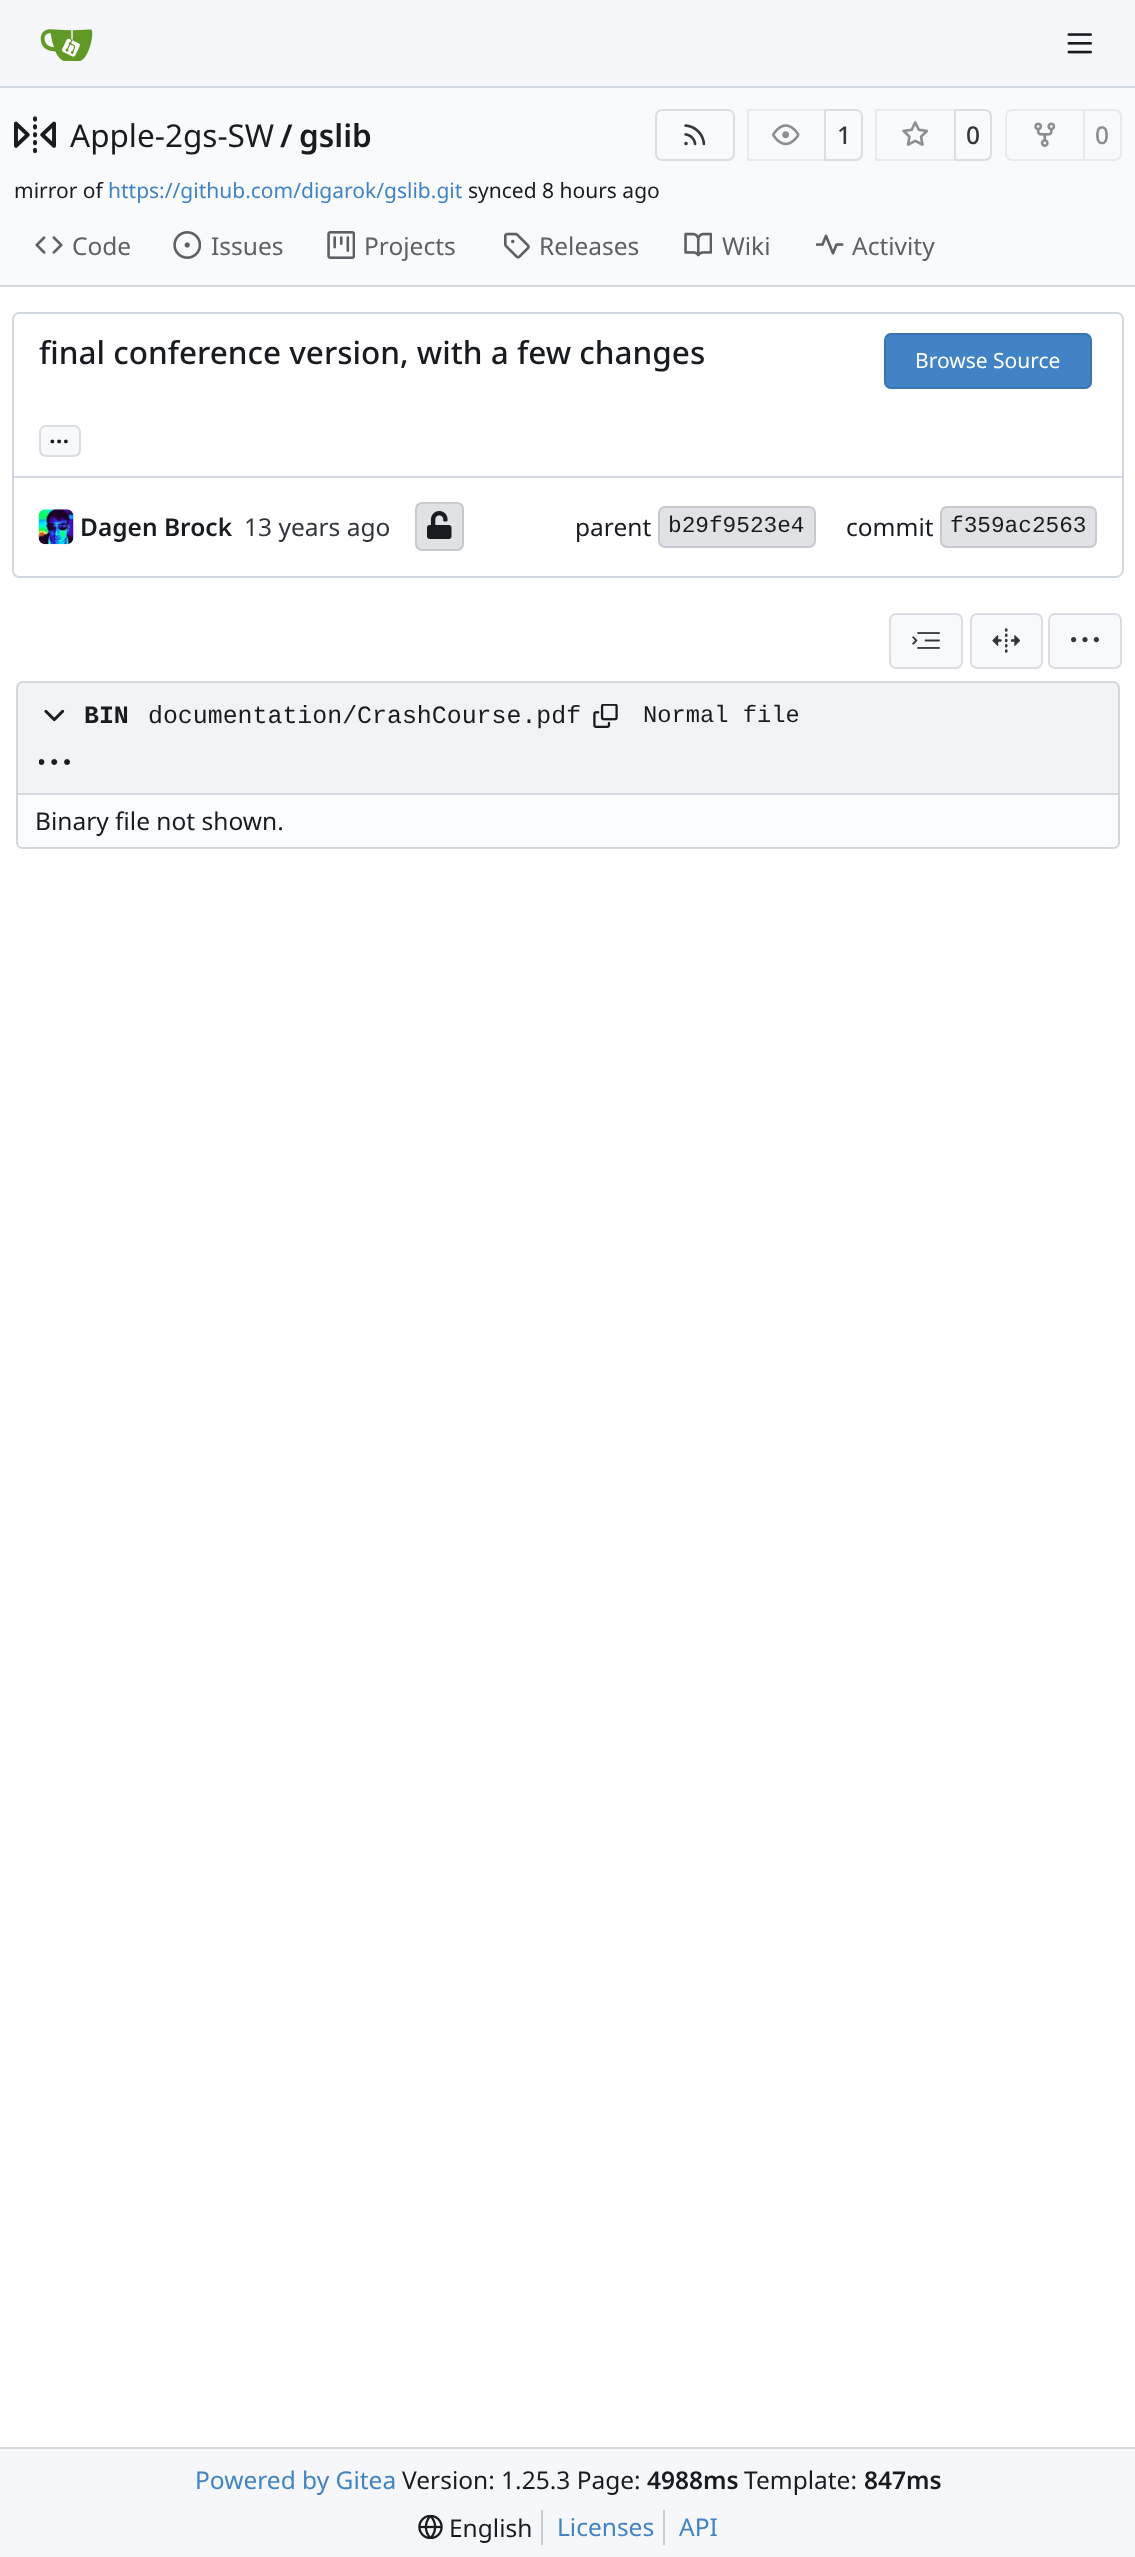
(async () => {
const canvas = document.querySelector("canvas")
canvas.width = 1135
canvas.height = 2557
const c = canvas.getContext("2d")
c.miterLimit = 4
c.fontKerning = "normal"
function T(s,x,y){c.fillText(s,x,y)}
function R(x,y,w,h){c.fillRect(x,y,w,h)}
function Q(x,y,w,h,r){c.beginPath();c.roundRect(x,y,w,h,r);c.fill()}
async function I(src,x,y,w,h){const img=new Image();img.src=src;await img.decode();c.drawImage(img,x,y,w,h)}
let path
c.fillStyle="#fff"
R(0,0,1135,2557)
c.fillStyle="#f6f7fa"
R(0,0,1135,86)
c.fillStyle="#d0d7de"
R(0,86,1135,2)
await I("1.png",40,29,53,32)
await I("2.png",1067,33,25,21)
c.fillStyle="#f9fafb"
R(0,88,1135,197)
await I("3.png",14,116,42,38)
c.font="31.5px Noto Sans"
c.fillStyle="#181c21"
T("Apple-2gs-SW",70,147)
c.font="600 31.5px Noto Sans"
T("/",280,147)
T("gslib",299,147)
c.beginPath()
c.roundRect(656,110,78,50,6)
c.strokeStyle="#dddee1"
c.lineWidth=2
c.stroke()
await I("4.png",684,124,22,22)
c.beginPath()
c.roundRect(825,110,37,50,[0,6,6,0])
c.stroke()
c.fillStyle="#f8f9fb8c"
c.beginPath()
c.roundRect(747,109,79,52,[7,0,0,7])
c.fill()
c.strokeStyle="#0000170f"
c.strokeRect(748,110,77,50)
await I("5.png",772,124,28,22)
c.font="500 24.5px Noto Sans"
c.fillStyle="#30363b"
T("1",837,144)
c.beginPath()
c.roundRect(955,110,36,50,[0,6,6,0])
c.strokeStyle="#dddee1"
c.stroke()
c.fillStyle="#f8f9fb8c"
c.beginPath()
c.roundRect(875,109,81,52,[7,0,0,7])
c.fill()
c.strokeStyle="#0000170f"
c.strokeRect(876,110,79,50)
await I("6.png",902,121,27,25)
c.fillStyle="#30363b"
T("0",966,144)
c.beginPath()
c.roundRect(1006,110,78,50,[6,0,0,6])
c.strokeStyle="#e9eaed"
c.stroke()
await I("7.png",1034,122,22,25)
c.fillStyle="#f8f9fb"
c.beginPath()
c.roundRect(1084,110,37,50,[0,6,6,0])
c.fill()
c.stroke()
c.fillStyle="#8a8e91"
T("0",1095,144)
c.font="21px Noto Sans"
c.fillStyle="#181c21"
T("mirror of",14,198)
c.fillStyle="#4183c4"
T("https://github.com/digarok/gslib.git",108,198)
c.fillStyle="#181c21"
T("synced 8 hours ago",468,198)
await I("8.png",35,236,28,18)
c.font="24.5px Noto Sans"
c.fillStyle="#5b6167"
T("Code",72,255)
await I("9.png",173,231,28,28)
T("Issues",211,255)
await I("10.png",327,231,28,28)
T("Projects",364,255)
await I("11.png",504,232,26,27)
T("Releases",539,255)
await I("12.png",684,232,28,25)
T("Wiki",722,255)
await I("13.png",816,234,28,21)
T("Activity",852,255)
c.fillStyle="#d0d7de"
R(0,285,1135,2)
c.beginPath()
c.roundRect(13,313,1110,164,[6,6,0,0])
c.strokeStyle="#d0d7de"
c.stroke()
c.font="500 31.5px Noto Sans"
c.fillStyle="#181c21"
T("final conference version, with a few changes",39,364)
c.fillStyle="#4183c4"
Q(884,333,208,56,7)
c.beginPath()
c.roundRect(885,334,206,54,6)
c.strokeStyle="#0000171c"
c.stroke()
c.font="21px Noto Sans"
c.fillStyle="#fff"
T("Browse Source",915,368)
c.fillStyle="#f8f9fb"
Q(39,425,42,32,7)
c.beginPath()
c.roundRect(40,426,40,30,6)
c.stroke()
c.font="600 24.5px Noto Sans"
c.fillStyle="#181c21"
T("...",49,443)
c.fillStyle="#d0d7de"
path = new Path2D("M12 478h1112v92c0 4-4 8-8 8h-1097c-4 0-7-4-7-8zm2 0h1108v92c0 3-3 6-6 6h-1097c-3 0-5-3-5-6z")
c.fill(path,"evenodd")
await I("14.png",38,509,36,36)
c.fillStyle="#181c21"
T("Dagen Brock",80,536)
c.font="24.5px Noto Sans"
c.fillStyle="#30363b"
T("13 years ago",244,536)
c.fillStyle="#e0e2e5"
Q(415,502,49,49,7)
c.beginPath()
c.roundRect(416,503,47,47,6)
c.stroke()
await I("15.png",427,511,25,28)
c.fillStyle="#181c21"
T("parent",575,536)
c.fillStyle="#e0e2e5"
Q(658,506,158,42,7)
c.beginPath()
c.roundRect(659,507,156,40,6)
c.stroke()
c.font="22.75px Liberation Mono"
c.fillStyle="#181c21"
T("b29f9523e4",668,532)
c.font="24.5px Noto Sans"
T("commit",846,536)
c.fillStyle="#e0e2e5"
Q(940,506,157,42,7)
c.beginPath()
c.roundRect(941,507,155,40,6)
c.stroke()
c.font="22.75px Liberation Mono"
c.fillStyle="#181c21"
T("f359ac2563",950,532)
c.fillStyle="#f8f9fb"
Q(889,613,74,56,7)
c.beginPath()
c.roundRect(890,614,72,54,6)
c.stroke()
await I("16.png",912,632,28,17)
Q(970,613,73,56,7)
c.beginPath()
c.roundRect(971,614,71,54,6)
c.stroke()
await I("17.png",992,628,28,25)
Q(1048,613,74,56,7)
c.beginPath()
c.roundRect(1049,614,72,54,6)
c.stroke()
await I("18.png",1071,637,28,6)
c.fillStyle="#d0d7de"
path = new Path2D("M16 794h1104v48c0 4-3 7-7 7h-1090c-4 0-7-3-7-7zm2 0h1100v48c0 3-2 5-5 5h-1090c-3 0-5-2-5-5z")
c.fill(path,"evenodd")
c.fillStyle="#fff"
path = new Path2D("M23 677c-5 0-9 4-9 9v109h1108v-109c0-5-4-9-9-9zm0 4c-4 0-7 3-7 7v106h1104v-106c0-4-3-7-7-7z")
c.fill(path,"evenodd")
c.fillStyle="#f1f3f5"
c.beginPath()
c.roundRect(17,682,1102,112,[6,6,0,0])
c.fill()
c.strokeStyle="#d0d7de"
c.stroke()
await I("19.png",44,709,21,13)
c.font="bold 24.9px Liberation Mono"
c.fillStyle="#181c21"
T("BIN",84,723)
c.font="24.9px Liberation Mono"
T("documentation/CrashCourse.pdf",148,723)
await I("20.png",593,704,25,24)
c.font="23.75px Liberation Mono"
T("Normal file",643,722)
await I("21.png",39,759,31,6)
c.fillStyle="#fafdff"
Q(18,795,1100,52,7)
c.font="24.5px Noto Sans"
c.fillStyle="#181c21"
T("Binary file not shown.",35,830)
c.fillStyle="#f6f7fa"
R(0,2449,1135,108)
c.fillStyle="#d0d7de"
R(0,2447,1135,2)
c.fillStyle="#4183c4"
T("Powered by Gitea",195,2489)
c.fillStyle="#181c21"
T("Version: 1.25.3 Page:",402,2489)
c.font="600 24.5px Noto Sans"
T("4988ms",647,2489)
c.font="24.5px Noto Sans"
T("Template:",744,2489)
c.font="600 24.5px Noto Sans"
T("847ms",864,2489)
await I("22.png",418,2515,25,24)
c.font="24.5px Noto Sans"
T("English",449,2537)
c.fillStyle="#c7ced5"
R(541,2510,2,35)
c.fillStyle="#4183c4"
T("Licenses",557,2536)
c.fillStyle="#c7ced5"
R(663,2510,2,35)
c.fillStyle="#4183c4"
T("API",679,2536)
})()
